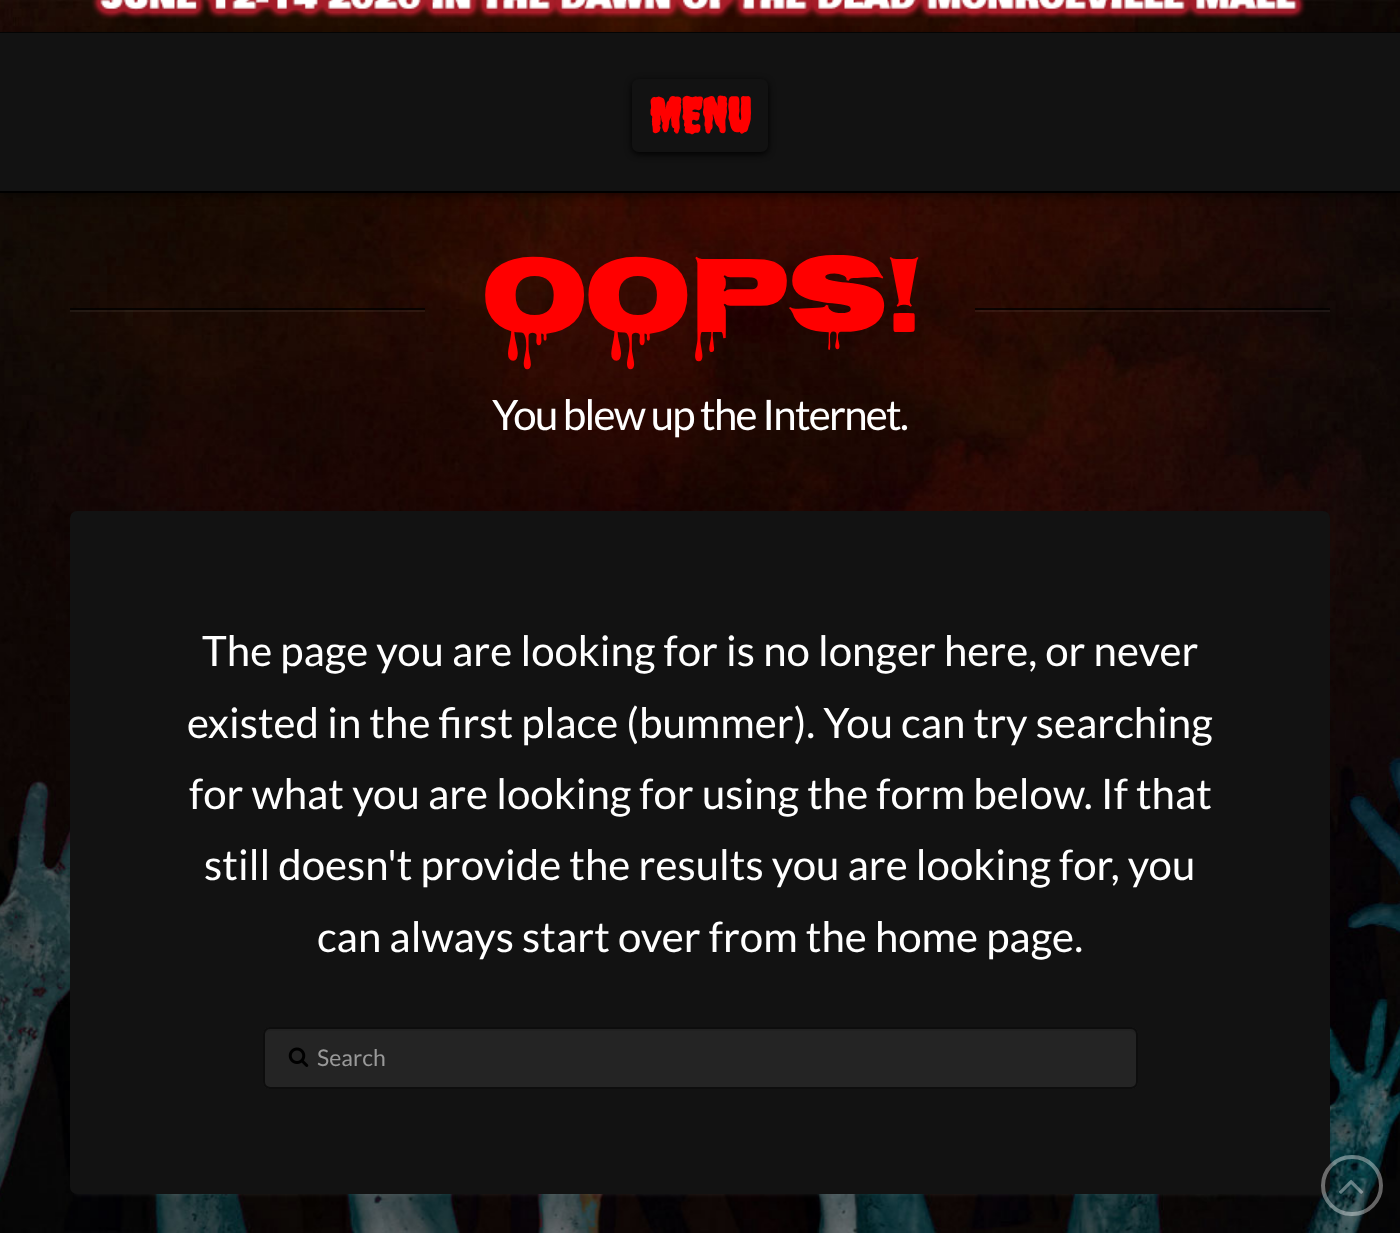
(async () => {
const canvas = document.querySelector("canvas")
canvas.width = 1400
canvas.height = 1233
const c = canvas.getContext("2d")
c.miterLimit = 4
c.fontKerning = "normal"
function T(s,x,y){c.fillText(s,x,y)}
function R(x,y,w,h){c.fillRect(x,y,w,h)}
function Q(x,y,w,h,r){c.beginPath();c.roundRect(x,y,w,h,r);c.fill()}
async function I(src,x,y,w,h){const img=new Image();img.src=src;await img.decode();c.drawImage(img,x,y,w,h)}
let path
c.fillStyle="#fff"
R(0,0,1400,1233)
await I("1.png",0,0,1400,1233)
c.fillStyle="#050505"
R(0,32,1400,1)
await I("2.png",91,0,1215,20)
c.fillStyle="#00000078"
c.filter="blur(5px)"
c.beginPath()
c.rect(0,37,1400,159)
c.fill()
c.filter="none"
c.fillStyle="#121212"
R(0,33,1400,158)
c.fillStyle="#000"
R(0,191,1400,2)
c.save()
path = new Path2D("M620 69h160v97h-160zm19 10h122c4 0 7 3 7 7v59c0 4-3 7-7 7h-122c-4 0-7-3-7-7v-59c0-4 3-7 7-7z")
c.clip(path,"evenodd")
c.filter="blur(3.5px)"
c.beginPath()
c.roundRect(632,81,136,73,7)
c.fill()
c.filter="none"
c.restore()
c.font="bold 49px Creepster"
c.fillStyle="#f00"
T("MENU",649,133)
c.fillStyle="#ffffff0f"
R(70,310,355,2)
c.fillStyle="#000000bf"
R(70,308,355,2)
c.letterSpacing="-5.25px"
c.font="112px Nosifer"
c.fillStyle="#f00"
T("Oops!",481,332)
c.fillStyle="#ffffff0f"
R(975,310,355,2)
c.fillStyle="#000000bf"
R(975,308,355,2)
c.letterSpacing="-1.75px"
c.font="42px Lato"
c.fillStyle="#fff"
T("You blew up the Internet.",492,430)
c.fillStyle="#ffffff12"
c.filter="blur(2px)"
c.beginPath()
c.roundRect(74,520,1253,675,4)
c.fill()
c.filter="none"
c.fillStyle="#121212"
Q(70,511,1260,683,7)
c.letterSpacing="0px"
c.fillStyle="#fff"
T("The page you are looking for is no longer here, or never",202,666)
T("existed in the first place (bummer). You can try searching",187,738)
T("for what you are looking for using the form below. If that",189,809)
T("still doesn't provide the results you are looking for, you",204,880)
T("can always start over from the home page.",317,952)
c.fillStyle="#242424"
Q(263,1027,875,62,7)
c.fillStyle="#212121"
path = new Path2D("M270 1031h860c3 0 6 2 6 5v-2c0-3-2-5-5-5h-862c-3 0-5 2-5 5v2c0-3 3-5 6-5z")
c.fill(path)
c.beginPath()
c.roundRect(264,1028,873,60,6)
c.strokeStyle="#0d0d0d"
c.lineWidth=2
c.stroke()
await I("3.png",288,1047,21,20)
c.font="23px Lato"
c.fillStyle="#999"
T("Search",317,1066)
c.beginPath()
c.roundRect(1323,1157,58,57,28.5)
c.strokeStyle="#ffffff61"
c.lineWidth=4
c.stroke()
await I("4.png",1339,1179,25,15)
})()
